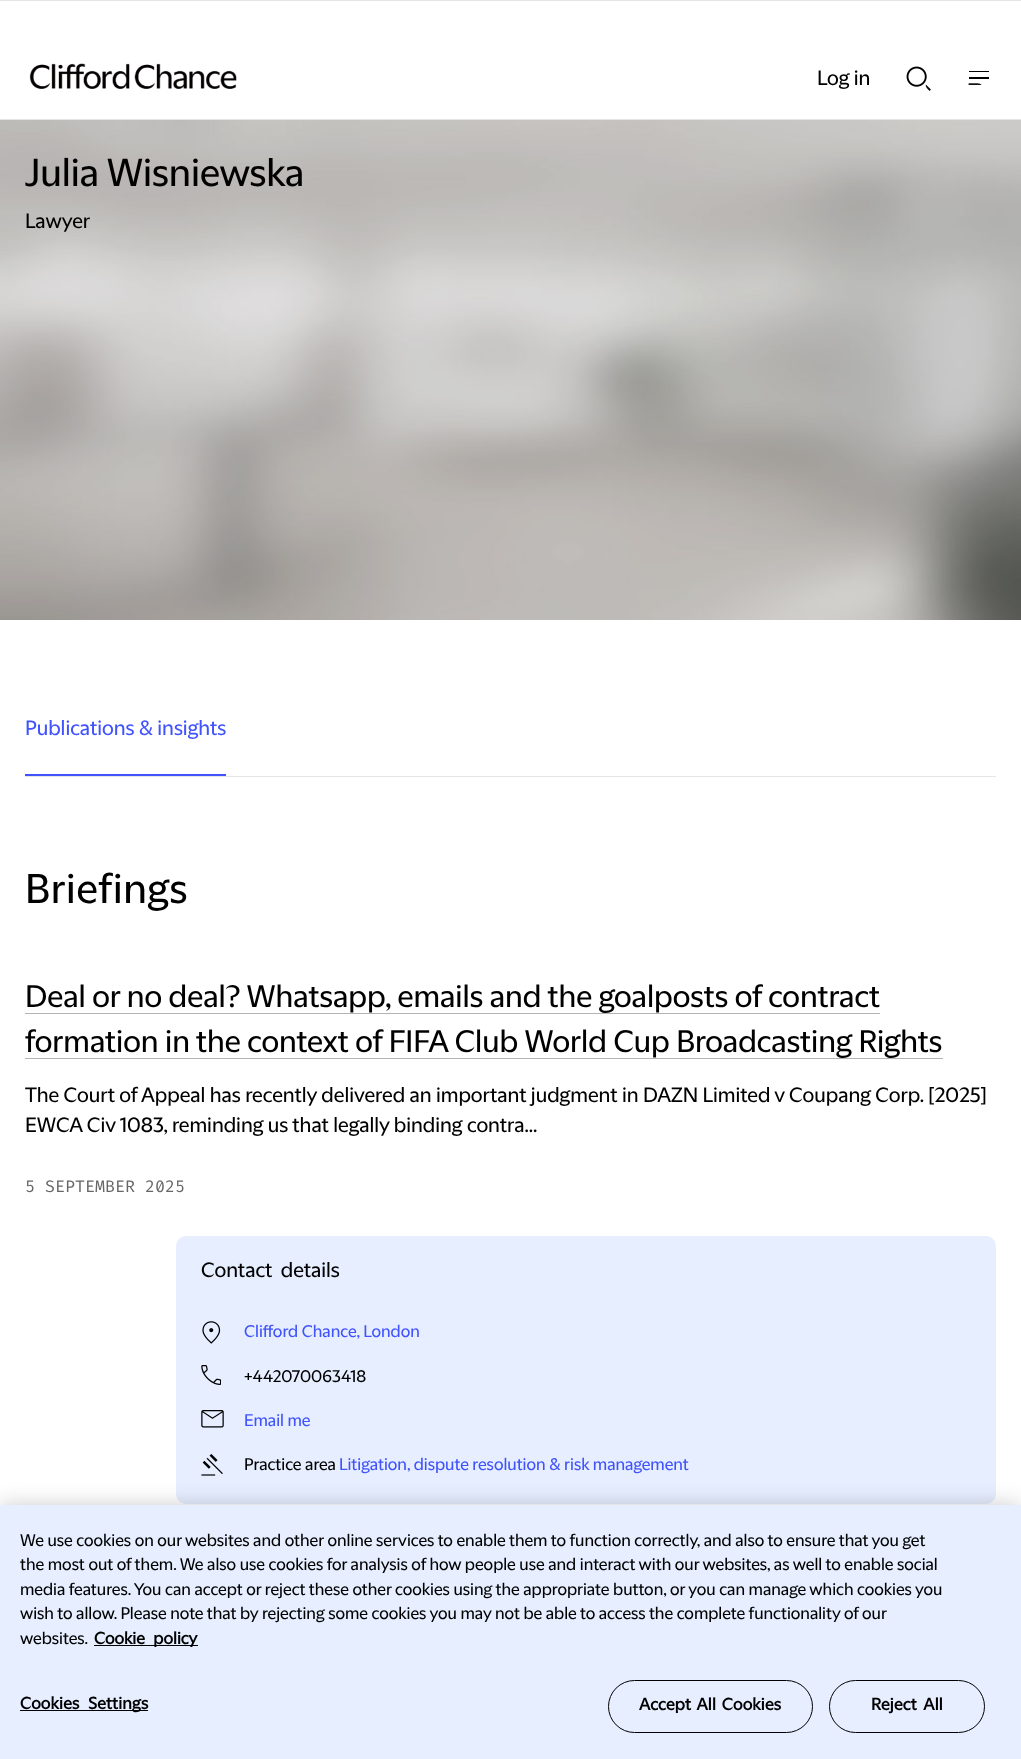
(async () => {
const canvas = document.querySelector("canvas")
canvas.width = 1021
canvas.height = 1759
const c = canvas.getContext("2d")
c.miterLimit = 4
c.fontKerning = "normal"
function T(s,x,y){c.fillText(s,x,y)}
function R(x,y,w,h){c.fillRect(x,y,w,h)}
function Q(x,y,w,h,r){c.beginPath();c.roundRect(x,y,w,h,r);c.fill()}
async function I(src,x,y,w,h){const img=new Image();img.src=src;await img.decode();c.drawImage(img,x,y,w,h)}
c.fillStyle="#fff"
R(0,0,1021,1759)
c.fillStyle="#e6e6e6"
R(0,0,1021,1)
R(0,119,1021,1)
await I("1.png",29,63,208,26)
await I("2.png",906,66,25,25)
await I("3.png",968,71,21,14)
c.font="20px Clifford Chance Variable"
c.fillStyle="#000"
T("Log in",817,85)
await I("4.png",0,120,1021,500)
c.font="37.5px Clifford Chance Variable"
T("Julia Wisniewska",25,186)
c.font="20px Clifford Chance Variable"
T("Lawyer",25,228)
c.fillStyle="#e6e6e6"
R(25,776,971,1)
c.fillStyle="#4053fc"
R(25,774,201,2)
T("Publications & insights",25,735)
c.letterSpacing="0.75px"
c.font="40px Clifford Chance Variable"
c.fillStyle="#000"
T("Briefings",25,903)
c.letterSpacing="0px"
c.font="30px Clifford Chance Variable"
T("Deal or no deal? Whatsapp, emails and the goalposts of contract",25,1007)
c.fillStyle="#b3b3b3"
R(25,1013,855,1)
c.fillStyle="#000"
T("formation in the context of FIFA Club World Cup Broadcasting Rights",25,1052)
c.fillStyle="#b3b3b3"
R(25,1058,918,1)
c.font="20px Clifford Chance Variable"
c.fillStyle="#000"
T("The Court of Appeal has recently delivered an important judgment in DAZN Limited v Coupang Corp. [2025]",25,1102)
T("EWCA Civ 1083, reminding us that legally binding contra...",25,1132)
c.font="16.25px Fira Code"
c.fillStyle="#666"
T("5 SEPTEMBER 2025",25,1192)
c.fillStyle="#e6eeff"
Q(176,1236,820,268,10)
c.wordSpacing="4px"
c.font="20px Clifford Chance Variable"
c.fillStyle="#000"
T("Contact details",201,1277)
await I("5.png",202,1321,19,23)
c.wordSpacing="0px"
c.font="16.25px Clifford Chance Variable"
c.fillStyle="#4053fc"
T("Clifford Chance, London",244,1337)
await I("6.png",201,1365,20,20)
c.fillStyle="#000"
T("+442070063418",244,1382)
await I("7.png",201,1410,23,18)
c.fillStyle="#4053fc"
T("Email me",244,1426)
await I("8.png",201,1454,22,22)
c.fillStyle="#000"
T("Practice area",244,1470)
c.fillStyle="#4053fc"
T("Litigation, dispute resolution & risk management",339,1470)
c.fillStyle="#00000033"
c.filter="blur(11px)"
c.beginPath()
c.rect(0,1505,1021,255)
c.fill()
c.filter="none"
c.fillStyle="#e6eeff"
R(0,1505,1021,254)
c.fillStyle="#000"
T("We use cookies on our websites and other online services to enable them to function correctly, and also to ensure that you get",20,1546)
T("the most out of them. We also use cookies for analysis of how people use and interact with our websites, as well to enable social",20,1570)
T("media features. You can accept or reject these other cookies using the appropriate button, or you can manage which cookies you",20,1595)
T("wish to allow. Please note that by rejecting some cookies you may not be able to access the complete functionality of our",20,1619)
T("websites.",20,1644)
R(94,1645,104,1)
c.wordSpacing="5px"
c.font="bold 16.25px Clifford Chance Variable"
T("Cookie policy",94,1644)
R(20,1710,128,1)
c.letterSpacing="0.2px"
T("Cookies Settings",20,1709)
c.beginPath()
c.roundRect(608.5,1680.5,204,52,26)
c.strokeStyle="#000"
c.stroke()
c.wordSpacing="2px"
T("Accept All Cookies",639,1710)
c.beginPath()
c.roundRect(829.5,1680.5,155,52,26)
c.stroke()
c.wordSpacing="3px"
T("Reject All",871,1710)
})()
